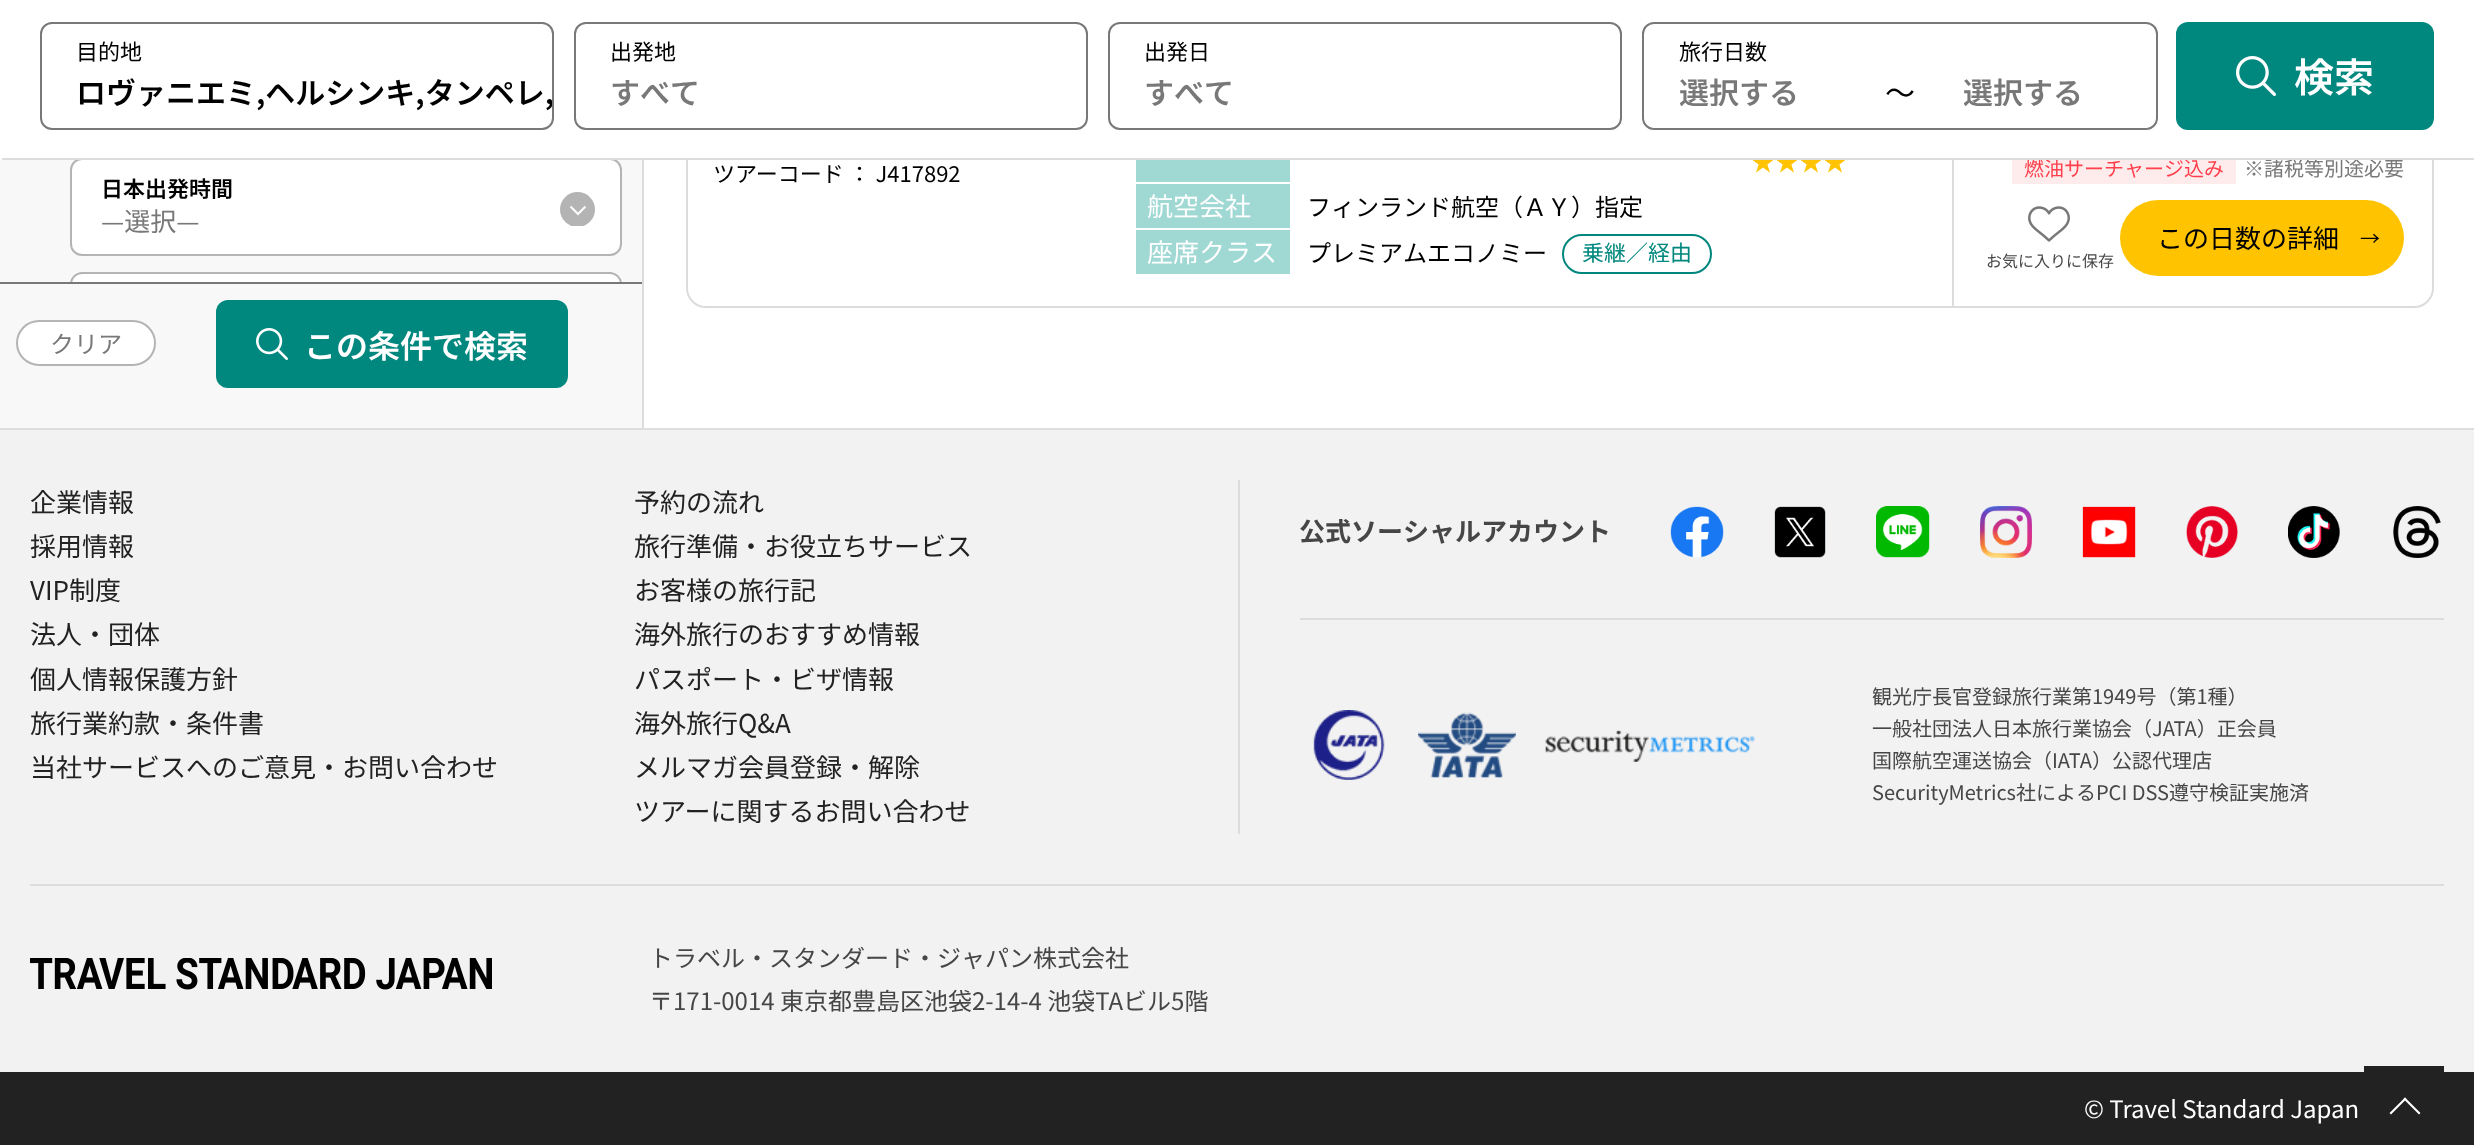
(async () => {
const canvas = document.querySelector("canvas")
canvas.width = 2474
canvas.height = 1145
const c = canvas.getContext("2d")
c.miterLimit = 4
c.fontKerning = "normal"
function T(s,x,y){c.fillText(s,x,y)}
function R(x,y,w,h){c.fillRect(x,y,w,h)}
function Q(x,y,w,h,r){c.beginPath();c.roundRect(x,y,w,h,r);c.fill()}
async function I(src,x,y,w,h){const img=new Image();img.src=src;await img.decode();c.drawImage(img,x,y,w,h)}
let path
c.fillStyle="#fff"
R(0,0,2474,1145)
c.fillStyle="#f8f8f8"
R(0,160,642,268)
c.fillStyle="#fff"
c.beginPath()
c.roundRect(71,159,550,96,11)
c.fill()
c.strokeStyle="#b4b4b4"
c.lineWidth=2
c.stroke()
c.beginPath()
c.roundRect(687,-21,1746,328,19)
c.strokeStyle="#dcdcdc"
c.stroke()
c.font="24px Noto Sans JP"
c.fillStyle="#ffc300"
T("★★★★",1751,171)
c.fillStyle="#feeced"
R(2012,160,224,24)
c.font="20px Noto Sans JP"
c.fillStyle="#ff404c"
T("燃油サーチャージ込み",2024,176)
c.fillStyle="#787878"
T("※諸税等別途必要",2244,176)
c.fillStyle="#fff"
R(75,0,2359,160)
c.beginPath()
c.roundRect(41,23,512,106,11)
c.strokeStyle="#787878"
c.stroke()
c.font="22px Noto Sans JP"
c.fillStyle="#000"
T("目的地",76,60)
c.save()
c.beginPath()
c.rect(42,54,510,74)
c.clip()
c.font="600 30px Noto Sans JP"
T("ロヴァニエミ,ヘルシンキ,タンペレ,",76,104)
c.restore()
c.beginPath()
c.roundRect(575,23,512,106,11)
c.stroke()
T("出発地",610,60)
c.font="600 30px Noto Sans JP"
c.fillStyle="#787878"
T("すべて",610,104)
c.beginPath()
c.roundRect(1109,23,512,106,11)
c.stroke()
c.font="22px Noto Sans JP"
c.fillStyle="#000"
T("出発日",1144,60)
c.font="600 30px Noto Sans JP"
c.fillStyle="#787878"
T("すべて",1144,104)
c.beginPath()
c.roundRect(1643,23,514,106,11)
c.stroke()
c.fillStyle="#fff"
Q(1644,54,226,74,12)
c.font="22px Noto Sans JP"
c.fillStyle="#000"
T("旅行日数",1679,60)
c.save()
c.beginPath()
c.rect(1678,76,158,30)
c.clip()
c.font="600 30px Noto Sans JP"
c.fillStyle="#787878"
T("選択する",1679,104)
c.restore()
c.font="30px Noto Sans JP"
T("～",1885,104)
c.fillStyle="#fff"
Q(1930,54,226,74,12)
c.save()
c.beginPath()
c.rect(1964,76,158,30)
c.clip()
c.font="600 30px Noto Sans JP"
c.fillStyle="#787878"
T("選択する",1963,104)
c.restore()
c.fillStyle="#00877e"
Q(2176,22,258,108,12)
await I("1.png",2236,56,40,40)
c.font="600 40px Noto Sans JP"
c.fillStyle="#fff"
T("検索",2294,92)
c.fillStyle="#dcdcdc"
R(2,158,2472,2)
R(642,160,2,268)
c.font="600 22px Noto Sans JP"
c.fillStyle="#000"
T("日本出発時間",101,197)
c.font="26px Noto Sans JP"
c.fillStyle="#787878"
T("—選択—",101,231)
c.save()
c.beginPath()
c.rect(560,192,36,34)
c.clip()
c.fillStyle="#b4b4b4"
c.beginPath()
c.arc(577.5,209.5,17.5,0,7)
c.fill()
c.restore()
path = new Path2D("M585.5 206.5l-7.5 7.5l-7.5-7.5")
c.strokeStyle="#fff"
c.stroke(path)
c.fillStyle="#fff"
c.beginPath()
c.roundRect(70,272,552,10,[12,12,0,0])
c.fill()
c.save()
c.beginPath()
c.rect(0,0,642,282)
c.clip()
c.beginPath()
c.roundRect(71,273,550,96,11)
c.strokeStyle="#b4b4b4"
c.stroke()
c.restore()
c.fillStyle="#787878"
R(0,282,642,2)
c.fillStyle="#fff"
c.beginPath()
c.roundRect(17,321,138,44,22)
c.fill()
c.strokeStyle="#b4b4b4"
c.stroke()
c.font="24px Noto Sans JP"
c.fillStyle="#787878"
T("クリア",50,353)
c.fillStyle="#00877e"
Q(216,300,352,88,12)
await I("2.png",256,328,32,32)
c.font="600 32px Noto Sans JP"
c.fillStyle="#fff"
T("この条件で検索",304,358)
c.fillStyle="#dcdcdc"
R(1952,160,2,146)
c.font="22px Noto Sans JP"
c.fillStyle="#000"
T("ツアーコード ： J417892",713,182)
c.fillStyle="#a0d8d4"
R(1136,160,154,22)
R(1136,184,154,44)
c.font="26px Noto Sans JP"
c.fillStyle="#fff"
T("航空会社",1147,216)
c.font="24px Noto Sans JP"
c.fillStyle="#000"
T("フィンランド航空（ＡＹ）指定",1307,216)
c.fillStyle="#a0d8d4"
R(1136,230,154,44)
c.font="26px Noto Sans JP"
c.fillStyle="#fff"
T("座席クラス",1147,262)
c.font="24px Noto Sans JP"
c.fillStyle="#000"
T("プレミアムエコノミー",1307,262)
c.beginPath()
c.roundRect(1563,235,148,38,19)
c.strokeStyle="#00877e"
c.stroke()
c.font="22px Noto Sans JP"
c.fillStyle="#00877e"
T("乗継／経由",1582,261)
c.fillStyle="#ffc300"
Q(2120,200,284,76,38)
c.font="26px Noto Sans JP"
c.fillStyle="#000"
T("この日数の詳細",2157,248)
c.font="20px Noto Sans JP"
T("→",2360,246)
await I("3.png",2028,206,42,36)
c.font="16px Noto Sans JP"
c.fillStyle="#464646"
T("お気に入りに保存",1986,267)
c.fillStyle="#f2f2f2"
R(0,430,2474,642)
c.fillStyle="#ddd"
R(0,428,2474,2)
c.font="26px Noto Sans JP"
c.fillStyle="#222"
T("企業情報",30,512)
T("採用情報",30,556)
T("VIP制度",30,600)
T("法人・団体",30,644)
T("個人情報保護方針",30,689)
T("旅行業約款・条件書",30,733)
T("当社サービスへのご意見・お問い合わせ",30,777)
T("予約の流れ",634,512)
T("旅行準備・お役立ちサービス",634,556)
T("お客様の旅行記",634,600)
T("海外旅行のおすすめ情報",634,644)
T("パスポート・ビザ情報",634,689)
T("海外旅行Q&A",634,733)
T("メルマガ会員登録・解除",634,777)
T("ツアーに関するお問い合わせ",634,821)
c.fillStyle="#ddd"
R(1238,480,2,354)
c.font="bold 26px Noto Sans JP"
c.fillStyle="#464646"
T("公式ソーシャルアカウント",1299,541)
await I("4.png",1670,506,54,52)
await I("5.png",1774,506,52,52)
await I("6.png",1876,506,54,52)
await I("7.png",1980,506,52,52)
await I("8.png",2082,506,54,52)
await I("9.png",2186,506,52,52)
await I("10.png",2288,506,52,52)
await I("11.png",2393,506,48,52)
c.fillStyle="#ddd"
R(1300,618,1144,2)
await I("12.png",1313,710,72,70)
await I("13.png",1418,712,98,66)
await I("14.png",1545,730,210,32)
c.font="20px Noto Sans JP"
c.fillStyle="#464646"
T("観光庁長官登録旅行業第1949号（第1種）",1872,704)
T("一般社団法人日本旅行業協会（JATA）正会員",1872,736)
T("国際航空運送協会（IATA）公認代理店",1872,768)
T("SecurityMetrics社によるPCI DSS遵守検証実施済",1872,800)
c.fillStyle="#ddd"
R(30,884,2414,2)
await I("15.png",30,958,462,32)
c.font="24px Noto Sans JP"
c.fillStyle="#464646"
T("トラベル・スタンダード・ジャパン株式会社",649,967)
T("〒171-0014 東京都豊島区池袋2-14-4 池袋TAビル5階",649,1010)
c.fillStyle="#222"
R(0,1072,2474,73)
c.fillStyle="#fff"
T("© Travel Standard Japan",2084,1118)
c.fillStyle="#222"
R(2364,1066,80,6)
c.fillStyle="#fff"
path = new Path2D("M2391 1114.5l-1.5-1.5l15.5-15.5l1.5 1.5z")
c.fill(path)
path = new Path2D("M2419 1114.5l-15.5-15.5l1.5-1.5l15.5 15.5z")
c.fill(path)
})()
